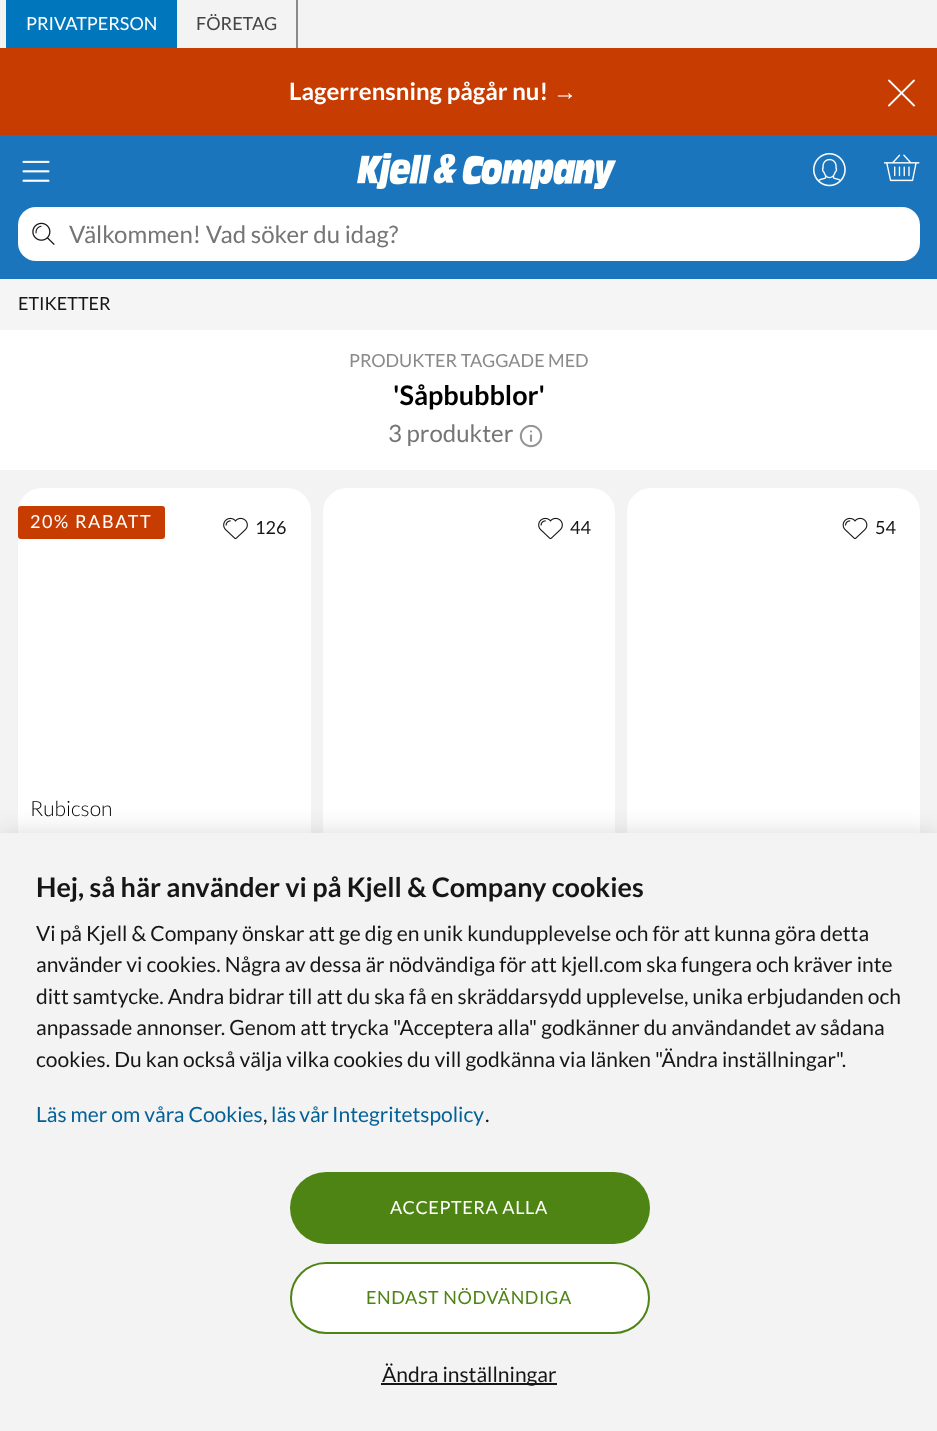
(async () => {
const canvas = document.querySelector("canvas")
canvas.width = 937
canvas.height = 1431
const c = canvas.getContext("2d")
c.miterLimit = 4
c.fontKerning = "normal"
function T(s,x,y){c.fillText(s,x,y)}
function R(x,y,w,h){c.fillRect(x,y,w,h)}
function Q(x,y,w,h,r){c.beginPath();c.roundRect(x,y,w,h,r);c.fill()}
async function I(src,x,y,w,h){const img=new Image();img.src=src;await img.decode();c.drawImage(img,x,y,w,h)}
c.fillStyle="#fff"
R(0,0,937,1431)
c.fillStyle="#f3f3f3"
R(0,0,937,48)
c.fillStyle="#0076bd"
R(6,0,171,48)
c.font="18px Lato"
c.fillStyle="#fff"
T("PRIVATPERSON",26,30)
c.fillStyle="#8a8a8a"
R(296,0,2,48)
c.fillStyle="#454545"
T("FÖRETAG",196,30)
c.fillStyle="#c73c00"
R(0,48,937,87)
c.font="bold 24px Lato"
c.fillStyle="#fff"
T("Lagerrensning pågår nu!",289,100)
c.font="bold 24px Liberation Sans"
T("→",553,100)
await I("1.png",888,79,27,28)
c.fillStyle="#1a75bc"
R(0,135,937,144)
await I("2.png",22,160,28,22)
await I("3.png",357,153,260,36)
await I("4.png",813,153,33,34)
await I("5.png",884,154,36,28)
c.fillStyle="#fff"
Q(18,207,902,54,18)
await I("6.png",32,222,23,23)
c.font="24px Lato"
c.fillStyle="#757575"
T("Välkommen! Vad söker du idag?",69,243)
c.fillStyle="#f5f5f5"
R(0,279,937,51)
c.font="18px Lato"
c.fillStyle="#161616"
T("ETIKETTER",18,310)
c.fillStyle="#8a8a8a"
T("PRODUKTER TAGGADE MED",349,367)
c.font="bold 27px Lato"
c.fillStyle="#000"
T("'Såpbubblor'",393,405)
c.font="24px Lato"
c.fillStyle="#757575"
T("3 produkter",388,442)
await I("7.png",519,425,24,23)
c.fillStyle="#f3f3f3"
R(0,470,937,363)
c.fillStyle="#fff"
Q(18,488,293,705,24)
c.fillStyle="#c73c00"
Q(18,506,147,33,3)
c.letterSpacing="1.6px"
c.font="18px Lato"
c.fillStyle="#fff"
T("20% RABATT",30,528)
await I("8.png",223,517,25,23)
c.letterSpacing="0px"
c.fillStyle="#161616"
T("126",255,534)
c.font="300 21px Lato"
c.fillStyle="#000"
T("Rubicson",30,816)
c.fillStyle="#fff"
Q(323,488,292,705,24)
await I("8.png",538,517,25,23)
c.font="18px Lato"
c.fillStyle="#161616"
T("44",570,534)
c.fillStyle="#fff"
Q(627,488,293,705,24)
await I("9.png",842,517,26,22)
c.fillStyle="#161616"
T("54",875,534)
c.fillStyle="#b3b3b380"
c.filter="blur(12px)"
c.beginPath()
c.rect(0,833,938,598)
c.fill()
c.filter="none"
c.fillStyle="#f3f3f3"
R(0,833,937,598)
c.font="bold 27px Lato"
c.fillStyle="#161616"
T("Hej, så här använder vi på Kjell & Company cookies",36,897)
c.font="21px Lato"
T("Vi på Kjell & Company önskar att ge dig en unik kundupplevelse och för att kunna göra detta",36,941)
T("använder vi cookies. Några av dessa är nödvändiga för att kjell.com ska fungera och kräver inte",36,972)
T("ditt samtycke. Andra bidrar till att du ska få en skräddarsydd upplevelse, unika erbjudanden och",36,1004)
T("anpassade annonser. Genom att trycka \"Acceptera alla\" godkänner du användandet av sådana",36,1035)
T("cookies. Du kan också välja vilka cookies du vill godkänna via länken \"Ändra inställningar\".",36,1067)
c.fillStyle="#046198"
T("Läs mer om våra Cookies",36,1122)
c.fillStyle="#161616"
T(",",263,1122)
c.wordSpacing="-1px"
c.fillStyle="#046198"
T("läs vår Integritetspolicy",271,1122)
c.wordSpacing="0px"
c.fillStyle="#161616"
T(".",485,1122)
c.fillStyle="#4e8414"
Q(290,1172,360,72,36)
c.letterSpacing="0.6px"
c.font="18px Lato"
c.fillStyle="#fff"
T("ACCEPTERA ALLA",390,1214)
c.beginPath()
c.roundRect(291,1263,358,70,35)
c.fill()
c.strokeStyle="#4e8414"
c.lineWidth=2
c.stroke()
c.fillStyle="#4e8414"
T("ENDAST NÖDVÄNDIGA",366,1304)
c.fillStyle="#161616"
R(381,1383,176,2)
c.letterSpacing="0px"
c.font="21px Lato"
T("Ändra inställningar",382,1382)
})()
